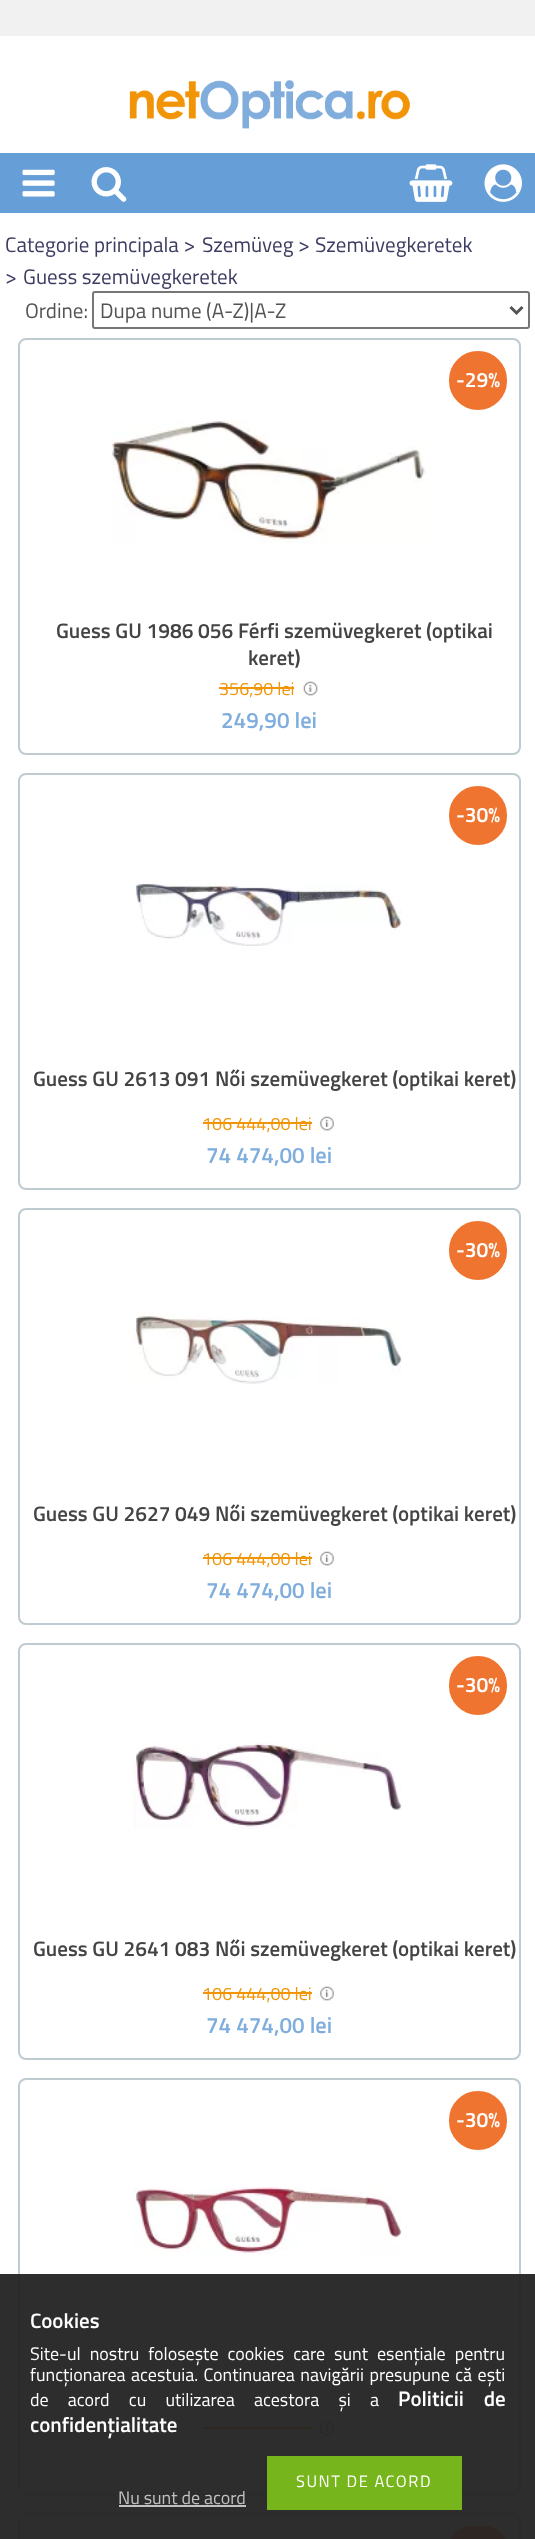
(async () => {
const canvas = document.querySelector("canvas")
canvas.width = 535
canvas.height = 2539
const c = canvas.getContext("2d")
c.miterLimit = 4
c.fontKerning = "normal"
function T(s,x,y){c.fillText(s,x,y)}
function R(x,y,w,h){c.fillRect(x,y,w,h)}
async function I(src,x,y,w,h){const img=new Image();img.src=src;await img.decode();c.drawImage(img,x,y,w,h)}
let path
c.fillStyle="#fff"
R(0,0,535,2539)
c.fillStyle="#f1f1f1"
R(0,0,535,36)
await I("1.png",129,79,281,50)
c.fillStyle="#669ed8"
R(0,153,535,60)
await I("2.png",22,169,33,28)
await I("3.png",91,167,36,35)
await I("4.png",409,164,44,38)
await I("5.png",484,164,38,38)
c.font="21px Titillium Web"
c.fillStyle="#3c3c62"
T("Categorie principala >",5,252)
T("Szemüveg >",202,252)
T("Szemüvegkeretek",315,252)
T(">",5,284)
T("Guess szemüvegkeretek",23,284)
c.fillStyle="#535353"
T("Ordine:",25,318)
c.beginPath()
c.roundRect(93,292,436,36,2)
c.strokeStyle="#767676"
c.lineWidth=2
c.stroke()
path = new Path2D("M510.5 307l6 6l6-6")
c.strokeStyle="#535353"
c.lineWidth=3
c.stroke(path)
T("Dupa nume (A-Z)|A-Z",100,318)
c.beginPath()
c.roundRect(19,339,501,415,7)
c.strokeStyle="#bfcbd0"
c.lineWidth=2
c.stroke()
c.fillStyle="#ef7430"
c.beginPath()
c.roundRect(450.5,352.5,55,56,27.5)
c.fill()
c.strokeStyle="#ef7430"
c.lineWidth=3
c.stroke()
c.font="600 21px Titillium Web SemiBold"
c.fillStyle="#fff"
T("-29%",456,387)
R(20,345,499,1)
await I("6.png",111,420,315,123)
c.fillStyle="#444"
T("Guess GU 1986 056 Férfi szemüvegkeret (optikai",56,638)
T("keret)",248,665)
c.font="18px Titillium Web"
c.fillStyle="#f19406"
T("356,90 lei",219,695)
R(219,687,75,2)
await I("7.png",303,681,15,15)
c.font="600 22.5px Titillium Web SemiBold"
c.fillStyle="#7faddd"
T("249,90 lei",221,728)
c.beginPath()
c.roundRect(19,774,501,415,7)
c.strokeStyle="#bfcbd0"
c.lineWidth=2
c.stroke()
c.fillStyle="#ef7430"
c.beginPath()
c.roundRect(450.5,787.5,55,56,27.5)
c.fill()
c.strokeStyle="#ef7430"
c.lineWidth=3
c.stroke()
c.font="600 21px Titillium Web SemiBold"
c.fillStyle="#fff"
T("-30%",456,822)
R(20,780,499,1)
await I("8.png",133,883,269,63)
c.fillStyle="#444"
T("Guess GU 2613 091 Női szemüvegkeret (optikai keret)",33,1086)
c.font="18px Titillium Web"
c.fillStyle="#f19406"
T("106 444,00 lei",202,1130)
R(203,1122,109,2)
await I("9.png",320,1116,14,15)
c.font="600 22.5px Titillium Web SemiBold"
c.fillStyle="#7faddd"
T("74 474,00 lei",206,1163)
c.beginPath()
c.roundRect(19,1209,501,415,7)
c.strokeStyle="#bfcbd0"
c.lineWidth=2
c.stroke()
c.fillStyle="#ef7430"
c.beginPath()
c.roundRect(450.5,1222.5,55,56,27.5)
c.fill()
c.strokeStyle="#ef7430"
c.lineWidth=3
c.stroke()
c.font="600 21px Titillium Web SemiBold"
c.fillStyle="#fff"
T("-30%",456,1257)
R(20,1215,499,1)
await I("10.png",133,1312,269,72)
c.fillStyle="#444"
T("Guess GU 2627 049 Női szemüvegkeret (optikai keret)",33,1521)
c.font="18px Titillium Web"
c.fillStyle="#f19406"
T("106 444,00 lei",202,1565)
R(203,1557,109,2)
await I("9.png",320,1551,14,15)
c.font="600 22.5px Titillium Web SemiBold"
c.fillStyle="#7faddd"
T("74 474,00 lei",206,1598)
c.beginPath()
c.roundRect(19,1644,501,415,7)
c.strokeStyle="#bfcbd0"
c.lineWidth=2
c.stroke()
c.fillStyle="#ef7430"
c.beginPath()
c.roundRect(450.5,1657.5,55,56,27.5)
c.fill()
c.strokeStyle="#ef7430"
c.lineWidth=3
c.stroke()
c.font="600 21px Titillium Web SemiBold"
c.fillStyle="#fff"
T("-30%",456,1692)
R(20,1650,499,1)
await I("11.png",133,1742,269,87)
c.fillStyle="#444"
T("Guess GU 2641 083 Női szemüvegkeret (optikai keret)",33,1956)
c.font="18px Titillium Web"
c.fillStyle="#f19406"
T("106 444,00 lei",202,2000)
R(203,1992,109,2)
await I("9.png",320,1986,14,15)
c.font="600 22.5px Titillium Web SemiBold"
c.fillStyle="#7faddd"
T("74 474,00 lei",206,2033)
c.beginPath()
c.roundRect(19,2079,501,415,7)
c.strokeStyle="#bfcbd0"
c.lineWidth=2
c.stroke()
c.fillStyle="#fff"
R(20,2085,499,1)
await I("12.png",133,2187,269,68)
c.fillStyle="#f19406"
R(203,2427,109,2)
await I("9.png",320,2421,14,15)
c.fillStyle="#ef7430"
c.beginPath()
c.roundRect(450.5,2092.5,55,56,27.5)
c.fill()
c.strokeStyle="#ef7430"
c.lineWidth=3
c.stroke()
c.font="600 21px Titillium Web SemiBold"
c.fillStyle="#fff"
T("-30%",456,2127)
c.beginPath()
c.roundRect(19,2514,501,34,7)
c.strokeStyle="#bfcbd0"
c.lineWidth=2
c.stroke()
R(20,2520,499,1)
c.fillStyle="#ef7430"
c.beginPath()
c.roundRect(450.5,2527.5,55,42,27.5)
c.fill()
c.strokeStyle="#ef7430"
c.lineWidth=3
c.stroke()
c.fillStyle="#222222f2"
R(0,2274,535,265)
c.fillStyle="#fff"
T("Cookies",30,2328)
c.wordSpacing="5px"
c.font="18px Titillium Web"
T("Site-ul nostru folosește cookies care sunt esențiale pentru",30,2360)
c.wordSpacing="1.5px"
T("funcționarea acestuia. Continuarea navigării presupune că ești",30,2381)
c.wordSpacing="15.25px"
T("de acord cu utilizarea acestora și a",30,2406)
c.font="600 21px Titillium Web SemiBold"
T("Politicii de",398,2406)
c.wordSpacing="0px"
T("confidențialitate",30,2432)
c.fillStyle="#76b51b"
R(267,2456,195,54)
c.letterSpacing="1.5px"
c.font="16.5px Titillium Web"
c.fillStyle="#fff"
T("SUNT DE ACORD",296,2487)
c.letterSpacing="0px"
c.font="18px Titillium Web"
c.fillStyle="#c0c0c0"
T("Nu sunt de acord",118,2504)
R(119,2505,127,2)
})()
